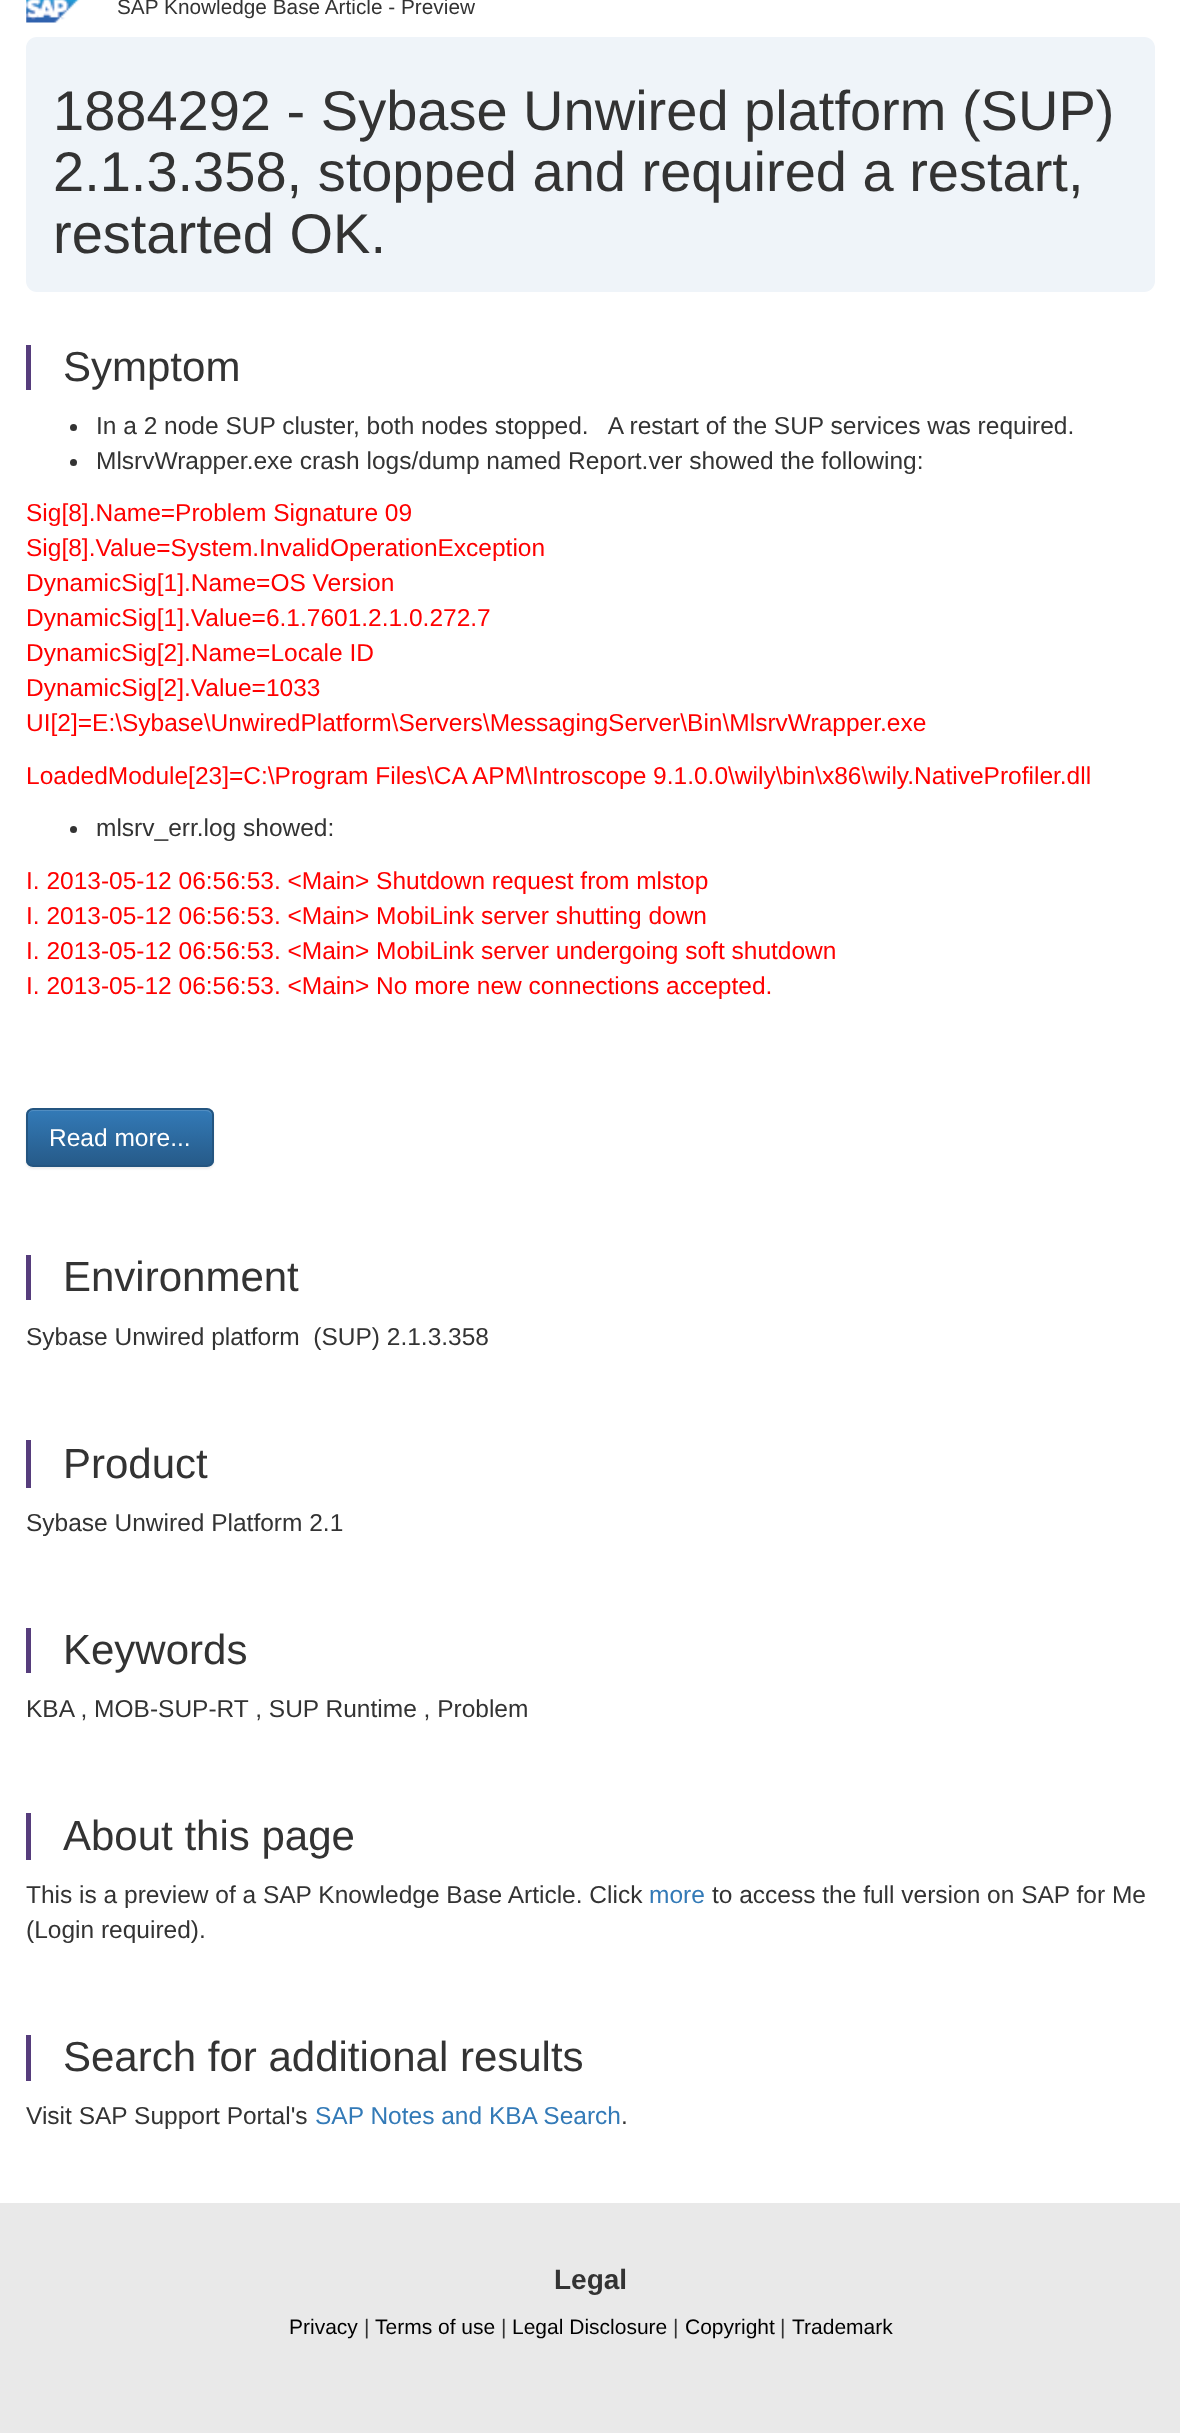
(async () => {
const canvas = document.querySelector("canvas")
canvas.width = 1180
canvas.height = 2433
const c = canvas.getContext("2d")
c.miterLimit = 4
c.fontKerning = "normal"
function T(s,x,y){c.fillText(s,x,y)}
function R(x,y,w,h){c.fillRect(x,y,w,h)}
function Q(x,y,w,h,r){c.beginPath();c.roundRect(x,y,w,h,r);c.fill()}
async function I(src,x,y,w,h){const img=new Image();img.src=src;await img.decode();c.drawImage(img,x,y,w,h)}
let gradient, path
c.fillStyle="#fff"
R(0,0,1180,2433)
await I("1.png",26,0,54,23)
c.font="20.8px Liberation Sans"
c.fillStyle="#333"
T("SAP Knowledge Base Article - Preview",117,14)
c.fillStyle="#eff4f9"
Q(26,37,1129,255,11)
c.font="56px Liberation Sans"
c.fillStyle="#333"
T("1884292 - Sybase Unwired platform (SUP)",53,130)
T("2.1.3.358, stopped and required a restart,",53,191)
T("restarted OK.",53,253)
c.fillStyle="#563d7c"
R(26,345,5,45)
c.font="42px Liberation Sans"
c.fillStyle="#333"
T("Symptom",63,381)
c.beginPath()
c.arc(73.5,427.5,3.5,0,7)
c.fill()
c.font="24.5px Liberation Sans"
T("In a 2 node SUP cluster, both nodes stopped.   A restart of the SUP services was required.",96,434)
c.beginPath()
c.arc(73.5,462.5,3.5,0,7)
c.fill()
T("MlsrvWrapper.exe crash logs/dump named Report.ver showed the following:",96,469)
c.fillStyle="#f00"
T("Sig[8].Name=Problem Signature 09",26,521)
T("Sig[8].Value=System.InvalidOperationException",26,556)
T("DynamicSig[1].Name=OS Version",26,591)
T("DynamicSig[1].Value=6.1.7601.2.1.0.272.7",26,626)
T("DynamicSig[2].Name=Locale ID",26,661)
T("DynamicSig[2].Value=1033",26,696)
T("UI[2]=E:\\Sybase\\UnwiredPlatform\\Servers\\MessagingServer\\Bin\\MlsrvWrapper.exe",26,731)
T("LoadedModule[23]=C:\\Program Files\\CA APM\\Introscope 9.1.0.0\\wily\\bin\\x86\\wily.NativeProfiler.dll",26,784)
c.fillStyle="#333"
c.beginPath()
c.arc(73.5,829.5,3.5,0,7)
c.fill()
T("mlsrv_err.log showed:",96,836)
c.fillStyle="#f00"
T("I. 2013-05-12 06:56:53. <Main> Shutdown request from mlstop",26,889)
T("I. 2013-05-12 06:56:53. <Main> MobiLink server shutting down",26,924)
T("I. 2013-05-12 06:56:53. <Main> MobiLink server undergoing soft shutdown",26,959)
T("I. 2013-05-12 06:56:53. <Main> No more new connections accepted.",26,994)
c.fillStyle="#00000012"
c.filter="blur(1px)"
c.beginPath()
c.roundRect(26,1110,188,59,7)
c.fill()
c.filter="none"
c.save()
c.beginPath()
c.roundRect(26,1108,188,59,7)
c.clip()
gradient = c.createLinearGradient(120,1110,120,1166)
gradient.addColorStop(0,"#337ab7")
gradient.addColorStop(1,"#265a88")
c.fillStyle = gradient
R(26,1110,188,56)
c.restore()
c.fillStyle="#ffffff26"
path = new Path2D("M33 1111h173c3 0 6 3 6 5c0-3-1-5-4-6h-176c-3 1-4 3-4 6c0-2 2-5 5-5z")
c.fill(path)
c.beginPath()
c.roundRect(27,1109,186,57,6)
c.strokeStyle="#245580"
c.lineWidth=2
c.stroke()
c.fillStyle="#fff"
T("Read more...",49,1146)
c.fillStyle="#563d7c"
R(26,1255,5,45)
c.font="42px Liberation Sans"
c.fillStyle="#333"
T("Environment",63,1291)
c.font="24.5px Liberation Sans"
T("Sybase Unwired platform  (SUP) 2.1.3.358",26,1345)
c.fillStyle="#563d7c"
R(26,1440,5,48)
c.font="42px Liberation Sans"
c.fillStyle="#333"
T("Product",63,1478)
c.font="24.5px Liberation Sans"
T("Sybase Unwired Platform 2.1",26,1531)
c.fillStyle="#563d7c"
R(26,1628,5,45)
c.font="42px Liberation Sans"
c.fillStyle="#333"
T("Keywords",63,1664)
c.font="24.5px Liberation Sans"
T("KBA , MOB-SUP-RT , SUP Runtime , Problem",26,1717)
c.fillStyle="#563d7c"
R(26,1813,5,47)
c.font="42px Liberation Sans"
c.fillStyle="#333"
T("About this page",63,1850)
c.font="24.5px Liberation Sans"
T("This is a preview of a SAP Knowledge Base Article. Click",26,1903)
c.fillStyle="#337ab7"
T("more",649,1903)
c.fillStyle="#333"
T("to access the full version on SAP for Me",712,1903)
T("(Login required).",26,1938)
c.fillStyle="#563d7c"
R(26,2035,5,46)
c.font="42px Liberation Sans"
c.fillStyle="#333"
T("Search for additional results",63,2071)
c.font="24.5px Liberation Sans"
T("Visit SAP Support Portal's",26,2124)
c.fillStyle="#337ab7"
T("SAP Notes and KBA Search",315,2124)
c.fillStyle="#333"
T(".",621,2124)
c.fillStyle="#e9e9e9"
R(0,2203,1180,230)
c.font="bold 28px Liberation Sans"
c.fillStyle="#333"
T("Legal",554,2289)
c.font="21px Liberation Sans"
c.fillStyle="#000"
T("Privacy",289,2334)
c.fillStyle="#333"
T("|",364,2334)
c.fillStyle="#000"
T("Terms of use",375,2334)
c.fillStyle="#333"
T("|",501,2334)
c.fillStyle="#000"
T("Legal Disclosure",512,2334)
c.fillStyle="#333"
T("|",673,2334)
c.fillStyle="#000"
T("Copyright",685,2334)
c.fillStyle="#333"
T("|",780,2334)
c.fillStyle="#000"
T("Trademark",792,2334)
})()
